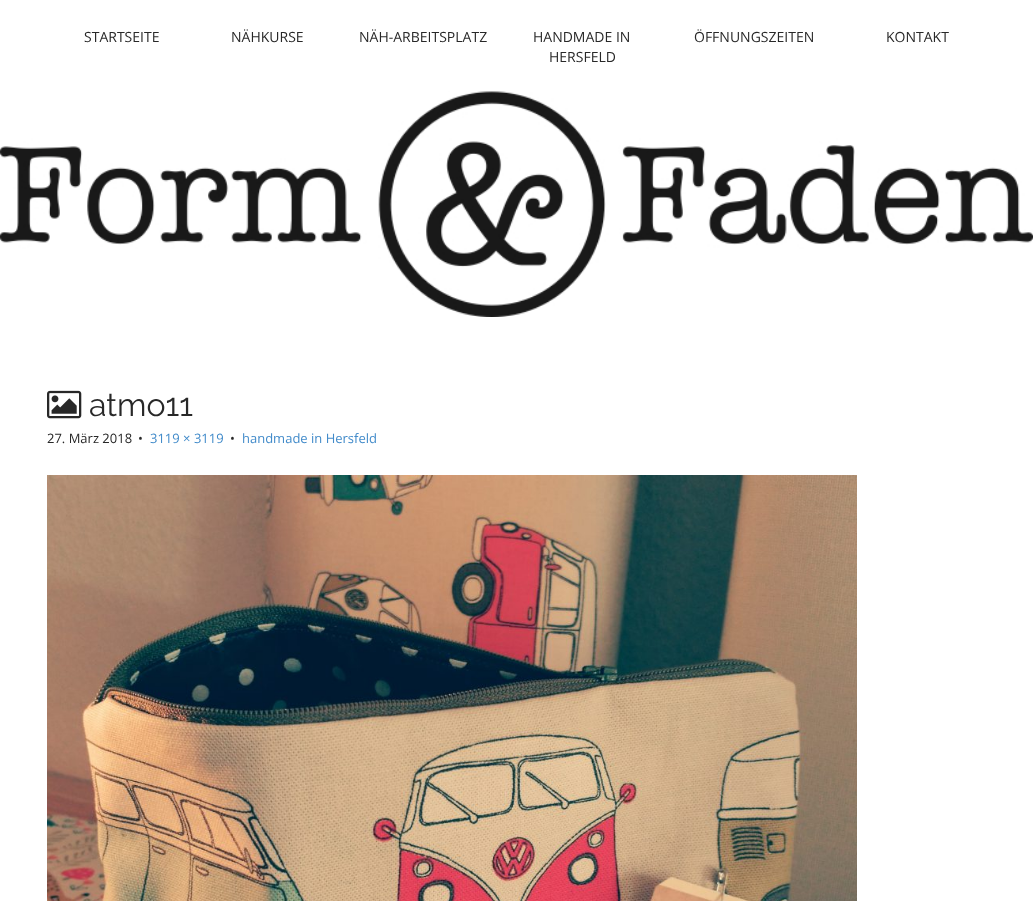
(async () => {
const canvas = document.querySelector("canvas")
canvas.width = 1033
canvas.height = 901
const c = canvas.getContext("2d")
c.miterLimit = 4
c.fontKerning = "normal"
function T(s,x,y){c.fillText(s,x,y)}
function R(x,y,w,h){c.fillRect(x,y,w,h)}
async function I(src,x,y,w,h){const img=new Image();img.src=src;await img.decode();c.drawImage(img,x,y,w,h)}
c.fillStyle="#fff"
R(0,0,1033,901)
c.font="14px Open Sans"
c.fillStyle="#282828"
T("STARTSEITE",84,42)
T("NÄHKURSE",231,42)
T("NÄH-ARBEITSPLATZ",359,42)
T("HANDMADE IN",533,42)
T("HERSFELD",549,62)
T("ÖFFNUNGSZEITEN",694,42)
T("KONTAKT",886,42)
await I("1.png",0,91,1033,226)
await I("2.png",47,390,35,29)
c.font="100 32px Raleway"
T("atmo11",89,416)
c.font="13px Open Sans"
T("27. März 2018",47,443)
T("•",138,443)
c.fillStyle="#428bca"
T("3119 × 3119",150,443)
c.fillStyle="#282828"
T("•",230,443)
c.fillStyle="#428bca"
T("handmade in Hersfeld",242,443)
await I("3.png",47,475,810,426)
})()
